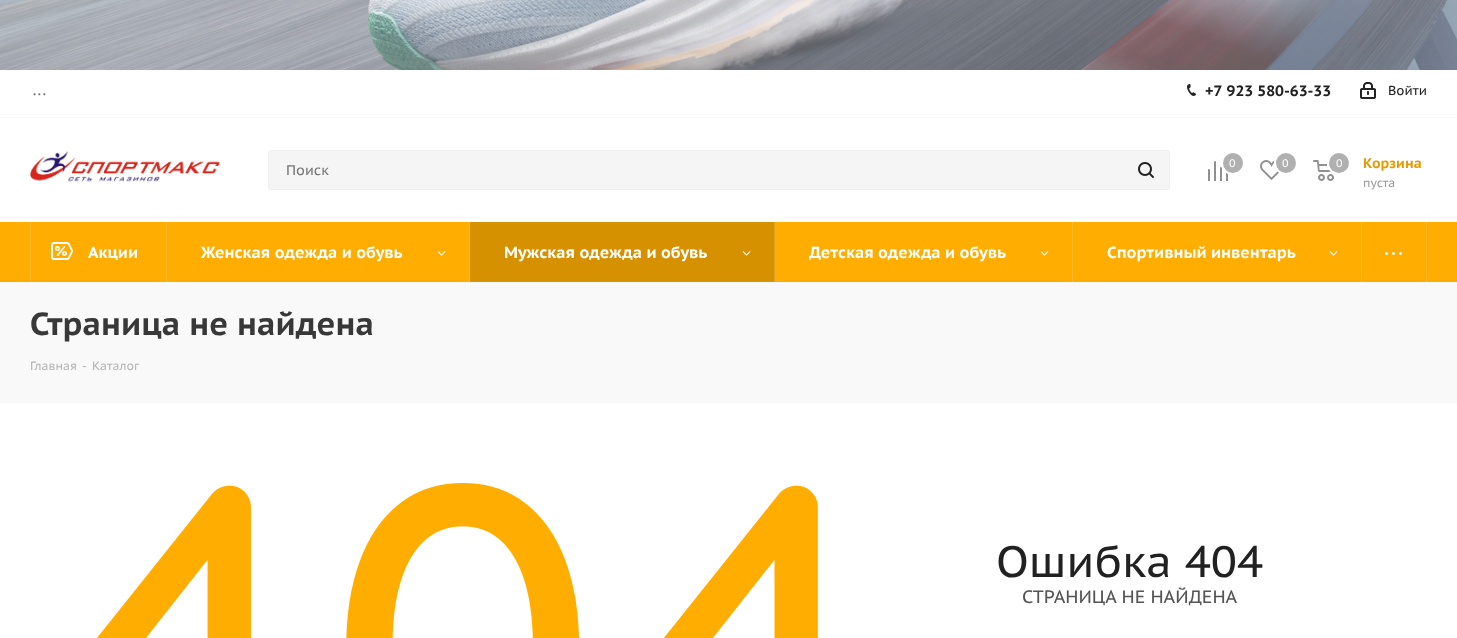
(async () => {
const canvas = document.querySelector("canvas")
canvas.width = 1457
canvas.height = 638
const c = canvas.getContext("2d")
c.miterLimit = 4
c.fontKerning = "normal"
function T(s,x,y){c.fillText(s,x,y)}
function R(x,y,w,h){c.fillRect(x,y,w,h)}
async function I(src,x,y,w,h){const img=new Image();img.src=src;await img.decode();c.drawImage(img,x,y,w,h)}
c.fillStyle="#fff"
R(0,0,1457,638)
await I("1.png",0,0,1457,70)
c.fillStyle="#f6f6f6"
R(0,117,1457,1)
c.letterSpacing="1.5px"
c.font="bold 12px PT Sans Caption"
c.fillStyle="#757575"
T("...",33,95)
await I("2.png",1187,84,9,12)
c.letterSpacing="0px"
c.font="bold 15px PT Sans Caption"
c.fillStyle="#212121"
T("+7 923 580-63-33",1205,96)
await I("3.png",1360,82,16,17)
c.font="13px PT Sans Caption"
T("Войти",1388,95)
await I("4.png",30,146,190,48)
c.fillStyle="#f5f5f5"
c.beginPath()
c.roundRect(268.5,150.5,901,39,2.5)
c.fill()
c.strokeStyle="#eee"
c.stroke()
c.font="14px PT Sans Caption"
c.fillStyle="#757575"
T("Поиск",286,175)
await I("5.png",1138,162,16,16)
await I("6.png",1208,161,20,20)
c.beginPath()
c.arc(1233,163,11,0,7)
c.strokeStyle="#fff"
c.lineWidth=2
c.stroke()
c.fillStyle="#b0b0b0"
c.beginPath()
c.arc(1233,163,10,0,7)
c.fill()
c.font="11px PT Sans Caption"
c.fillStyle="#fff"
T("0",1229,167)
await I("7.png",1260,160,21,20)
c.beginPath()
c.arc(1286,163,11,0,7)
c.stroke()
c.fillStyle="#b0b0b0"
c.beginPath()
c.arc(1286,163,10,0,7)
c.fill()
c.fillStyle="#fff"
T("0",1282,167)
await I("8.png",1313,160,21,21)
c.beginPath()
c.arc(1339,163,11,0,7)
c.stroke()
c.beginPath()
c.arc(1339,163,11,0,7)
c.stroke()
c.fillStyle="#b0b0b0"
c.beginPath()
c.arc(1339,163,10,0,7)
c.fill()
c.fillStyle="#fff"
T("0",1336,167)
c.font="bold 14px PT Sans Caption"
c.fillStyle="#e69c00"
T("Корзина",1363,168)
c.font="12px PT Sans Caption"
c.fillStyle="#999"
T("пуста",1363,187)
c.fillStyle="#ffad00"
R(0,222,1457,60)
c.fillStyle="#ffb926"
R(30,222,1,60)
R(166,222,1,60)
await I("9.png",51,242,22,18)
c.font="bold 16px PT Sans Caption"
c.fillStyle="#fff"
T("Акции",88,258)
c.fillStyle="#ffb926"
R(469,222,1,60)
c.fillStyle="#fff"
T("Женская одежда и обувь",201,258)
await I("10.png",437,251,9,5)
c.fillStyle="#d69100"
R(470,222,304,60)
c.fillStyle="#dca226"
R(774,222,1,60)
c.fillStyle="#fff"
T("Мужская одежда и обувь",504,258)
await I("11.png",742,251,9,5)
c.fillStyle="#ffb926"
R(1072,222,1,60)
c.fillStyle="#fff"
T("Детская одежда и обувь",809,258)
await I("10.png",1040,251,9,5)
c.fillStyle="#ffb926"
R(1361,222,1,60)
c.fillStyle="#fff"
T("Спортивный инвентарь",1107,258)
await I("10.png",1329,251,9,5)
c.fillStyle="#ffb926"
R(1426,222,1,60)
await I("12.png",1385,252,17,3)
c.fillStyle="#f9f9f9"
R(0,282,1457,121)
c.font="bold 32px PT Sans Caption"
c.fillStyle="#383838"
T("Страница не найдена",30,335)
c.font="12px PT Sans Caption"
c.fillStyle="#b6b5b5"
T("Главная",30,370)
T("-",82,370)
T("Каталог",92,370)
await I("13.png",97,483,721,155)
c.font="44px PT Sans Caption"
c.fillStyle="#212121"
T("Ошибка 404",996,577)
c.font="18px PT Sans Caption"
c.fillStyle="#555"
T("СТРАНИЦА НЕ НАЙДЕНА",1022,603)
})()
